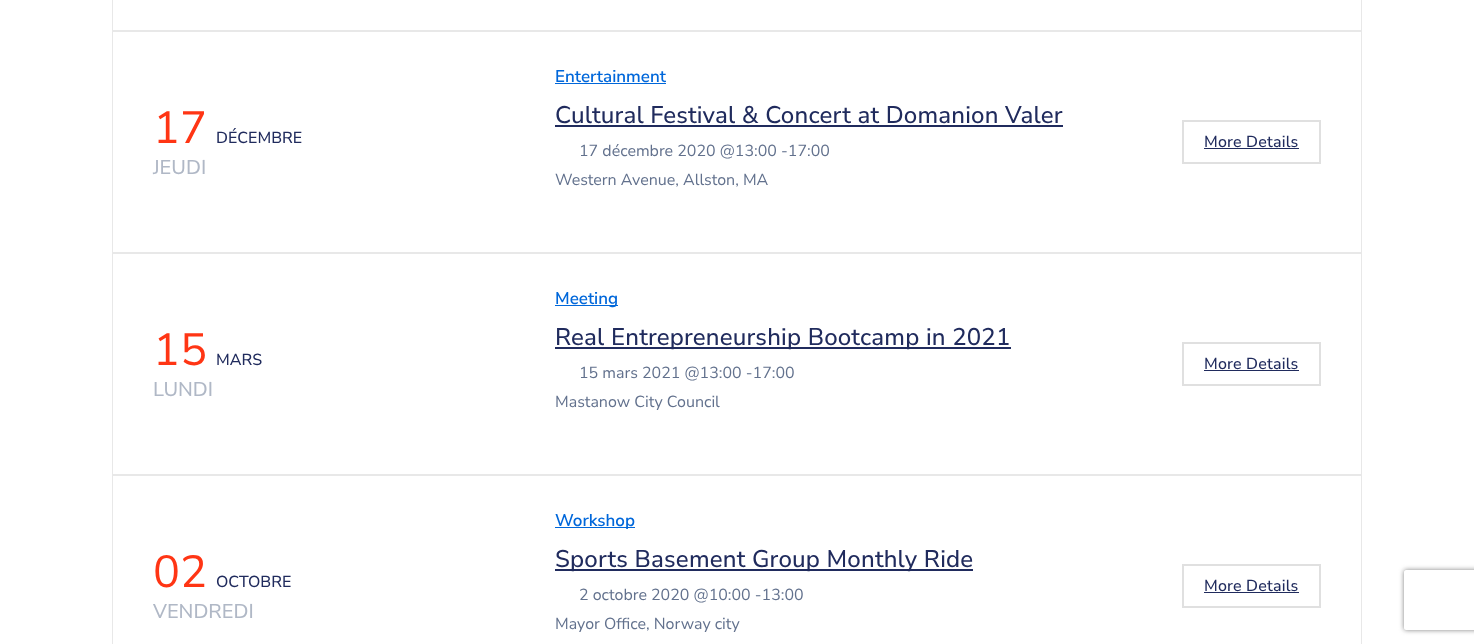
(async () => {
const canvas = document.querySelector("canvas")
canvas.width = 1474
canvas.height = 644
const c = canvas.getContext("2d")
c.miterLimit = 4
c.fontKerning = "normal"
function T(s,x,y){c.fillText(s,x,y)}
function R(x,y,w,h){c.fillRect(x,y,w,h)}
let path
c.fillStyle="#fff"
R(0,0,1474,644)
c.strokeStyle="#e8e8e8"
c.strokeRect(112.5,-.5,1249,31)
c.strokeRect(112.5,31.5,1249,221)
c.font="45px Nunito Sans"
c.fillStyle="#ff3514"
T("17",153,143)
c.font="500 16px Nunito Sans"
c.fillStyle="#202b5d"
T("DÉCEMBRE",216,143)
c.font="500 20px Nunito Sans"
c.fillStyle="#b0b8c6"
T("JEUDI",153,174)
c.font="600 17px Nunito Sans"
c.fillStyle="#0067da"
T("Entertainment",555,82)
R(555,83,111,1)
c.letterSpacing="0.2px"
c.font="500 24px Nunito Sans"
c.fillStyle="#202b5d"
T("Cultural Festival & Concert at Domanion Valer",555,123)
R(555,125,508,2)
c.letterSpacing="0px"
c.font="16px Nunito Sans"
c.fillStyle="#62718d"
T("17 décembre 2020 @13:00 -17:00",579,156)
T("Western Avenue, Allston, MA",555,185)
c.strokeStyle="#e0e0e0"
c.lineWidth=2
c.strokeRect(1183,121,137,42)
c.letterSpacing="0.2px"
c.font="500 16px Nunito Sans"
c.fillStyle="#202b5d"
T("More Details",1204,147)
R(1204,148,95,1)
c.strokeStyle="#e8e8e8"
c.lineWidth=1
c.strokeRect(112.5,253.5,1249,221)
c.letterSpacing="0px"
c.font="45px Nunito Sans"
c.fillStyle="#ff3514"
T("15",153,365)
c.font="500 16px Nunito Sans"
c.fillStyle="#202b5d"
T("MARS",216,365)
c.font="500 20px Nunito Sans"
c.fillStyle="#b0b8c6"
T("LUNDI",153,396)
c.fillStyle="#0067da"
R(555,305,63,1)
c.font="600 17px Nunito Sans"
T("Meeting",555,304)
c.fillStyle="#202b5d"
R(555,347,456,2)
c.letterSpacing="0.2px"
c.font="500 24px Nunito Sans"
T("Real Entrepreneurship Bootcamp in 2021",555,345)
c.letterSpacing="0px"
c.font="16px Nunito Sans"
c.fillStyle="#62718d"
T("15 mars 2021 @13:00 -17:00",579,378)
T("Mastanow City Council",555,407)
c.strokeStyle="#e0e0e0"
c.lineWidth=2
c.strokeRect(1183,343,137,42)
c.letterSpacing="0.2px"
c.font="500 16px Nunito Sans"
c.fillStyle="#202b5d"
T("More Details",1204,369)
R(1204,370,95,1)
c.strokeStyle="#e8e8e8"
c.lineWidth=1
c.strokeRect(112.5,475.5,1249,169)
c.letterSpacing="0px"
c.font="45px Nunito Sans"
c.fillStyle="#ff3514"
T("02",153,587)
c.font="500 16px Nunito Sans"
c.fillStyle="#202b5d"
T("OCTOBRE",216,587)
c.font="500 20px Nunito Sans"
c.fillStyle="#b0b8c6"
T("VENDREDI",153,618)
c.fillStyle="#0067da"
R(555,527,80,1)
c.font="600 17px Nunito Sans"
T("Workshop",555,526)
c.fillStyle="#202b5d"
R(555,569,418,2)
c.letterSpacing="0.2px"
c.font="500 24px Nunito Sans"
T("Sports Basement Group Monthly Ride",555,567)
c.letterSpacing="0px"
c.font="16px Nunito Sans"
c.fillStyle="#62718d"
T("2 octobre 2020 @10:00 -13:00",579,600)
T("Mayor Office, Norway city",555,629)
c.strokeStyle="#e0e0e0"
c.lineWidth=2
c.strokeRect(1183,565,137,42)
c.letterSpacing="0.2px"
c.font="500 16px Nunito Sans"
c.fillStyle="#202b5d"
T("More Details",1204,591)
R(1204,592,95,1)
c.save()
path = new Path2D("M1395 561h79v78h-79zm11 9h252c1 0 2 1 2 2v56c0 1-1 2-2 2h-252c-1 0-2-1-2-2v-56c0-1 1-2 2-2z")
c.clip(path,"evenodd")
c.fillStyle="#808080"
c.filter="blur(2.5px)"
c.beginPath()
c.roundRect(1404,570,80,60,2)
c.fill()
c.filter="none"
c.restore()
})()
